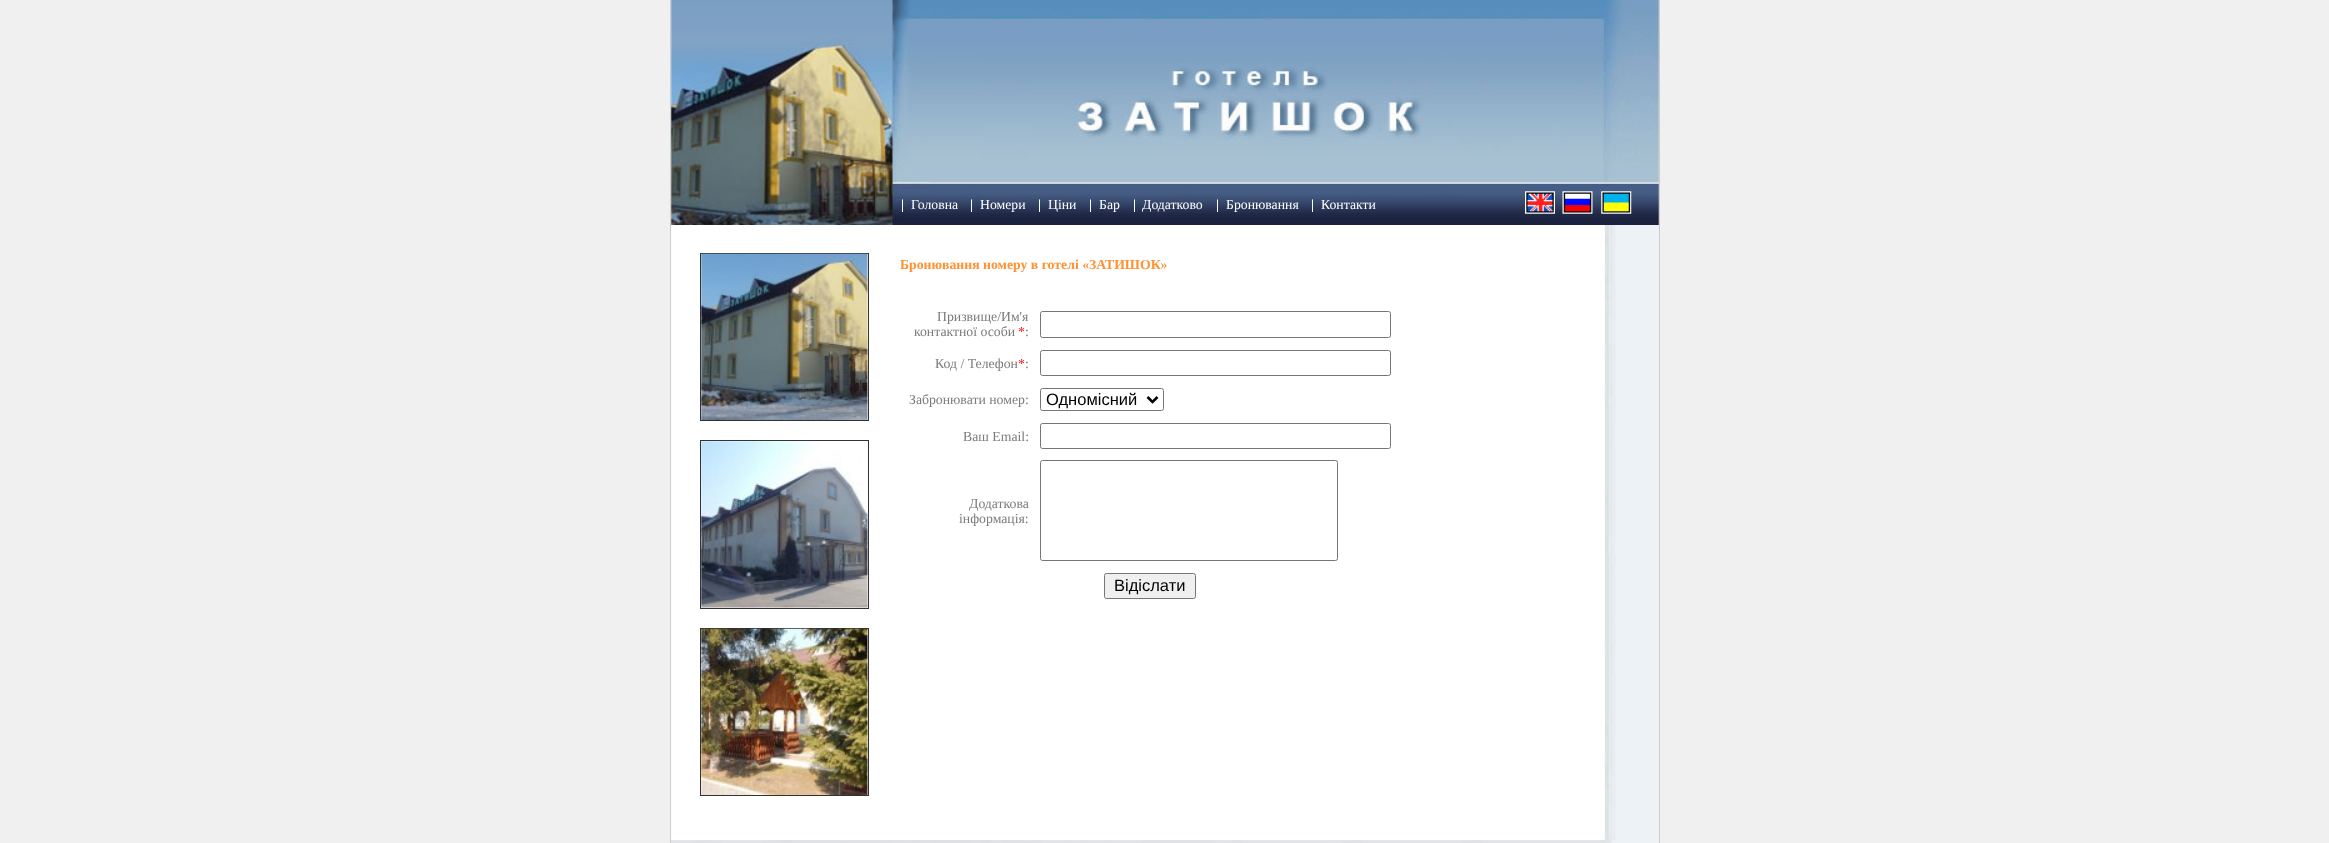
(async () => {
const canvas = document.querySelector("canvas")
canvas.width = 2329
canvas.height = 843
const c = canvas.getContext("2d")
c.miterLimit = 4
c.fontKerning = "normal"
function T(s,x,y){c.fillText(s,x,y)}
function R(x,y,w,h){c.fillRect(x,y,w,h)}
async function I(src,x,y,w,h){const img=new Image();img.src=src;await img.decode();c.drawImage(img,x,y,w,h)}
let path
c.fillStyle="#f0f0f0"
R(0,0,2329,843)
c.fillStyle="#edf2f7"
R(671,0,988,843)
c.fillStyle="#ccc"
R(1659,0,1,843)
R(670,0,1,843)
await I("1.png",671,0,988,225)
c.font="bold 13.75px Liberation Serif"
c.fillStyle="#fff"
T("|",901,209)
c.font="13.75px Liberation Serif"
T("Головна",911,209)
c.font="bold 13.75px Liberation Serif"
T("|",970,209)
c.font="13.75px Liberation Serif"
T("Номери",980,209)
c.font="bold 13.75px Liberation Serif"
T("|",1038,209)
c.font="13.75px Liberation Serif"
T("Ціни",1048,209)
c.font="bold 13.75px Liberation Serif"
T("|",1089,209)
c.font="13.75px Liberation Serif"
T("Бар",1099,209)
c.font="bold 13.75px Liberation Serif"
T("|",1133,209)
c.font="13.75px Liberation Serif"
T("Додатково",1142,209)
c.font="bold 13.75px Liberation Serif"
T("|",1216,209)
c.font="13.75px Liberation Serif"
T("Бронювання",1226,209)
c.font="bold 13.75px Liberation Serif"
T("|",1311,209)
c.font="13.75px Liberation Serif"
T("Контакти",1321,209)
await I("2.png",1525,191,30,23)
await I("3.png",1562,191,31,23)
await I("4.png",1601,191,31,23)
await I("5.png",671,225,945,615)
c.strokeStyle="#333"
c.strokeRect(700.5,253.5,168,167)
await I("6.png",701,253,167,167)
c.strokeRect(700.5,440.5,168,168)
await I("7.png",701,441,167,167)
c.strokeRect(700.5,628.5,168,167)
await I("8.png",701,628,167,167)
c.font="bold 13.75px Liberation Serif"
c.fillStyle="#fe9233"
T("Бронювання номеру в готелі «ЗАТИШОК»",900,269)
c.font="13.75px Liberation Serif"
c.fillStyle="#7b7b7b"
T("Призвище/Им'я",937,321)
T("контактної особи",914,336)
c.fillStyle="#f00"
T("*",1018,336)
c.fillStyle="#7b7b7b"
T(":",1025,336)
c.beginPath()
c.roundRect(1040.5,311.5,350,26,2)
c.strokeStyle="#767676"
c.stroke()
T("Код / Телефон",935,368)
c.fillStyle="#f00"
T("*",1018,368)
c.fillStyle="#7b7b7b"
T(":",1025,368)
c.beginPath()
c.roundRect(1040.5,350.5,350,25,2)
c.stroke()
T("Забронювати номер:",909,404)
c.beginPath()
c.roundRect(1040.5,388.5,123,22,2)
c.stroke()
path = new Path2D("M1147.5 397l5 5l5-5")
c.strokeStyle="#000"
c.lineWidth=2.5
c.stroke(path)
c.font="16.5px Liberation Sans"
c.fillStyle="#000"
T("Одномісний",1046,405)
c.font="13.75px Liberation Serif"
c.fillStyle="#7b7b7b"
T("Ваш Email:",963,441)
c.beginPath()
c.roundRect(1040.5,423.5,350,25,2)
c.strokeStyle="#767676"
c.lineWidth=1
c.stroke()
T("Додаткова",969,508)
T("інформація:",959,523)
c.beginPath()
c.roundRect(1040.5,460.5,297,100,2)
c.stroke()
c.fillStyle="#efefef"
c.beginPath()
c.roundRect(1104.5,573.5,91,25,2)
c.fill()
c.stroke()
c.font="16.5px Liberation Sans"
c.fillStyle="#000"
T("Відіслати",1114,591)
await I("9.png",671,840,941,3)
})()
